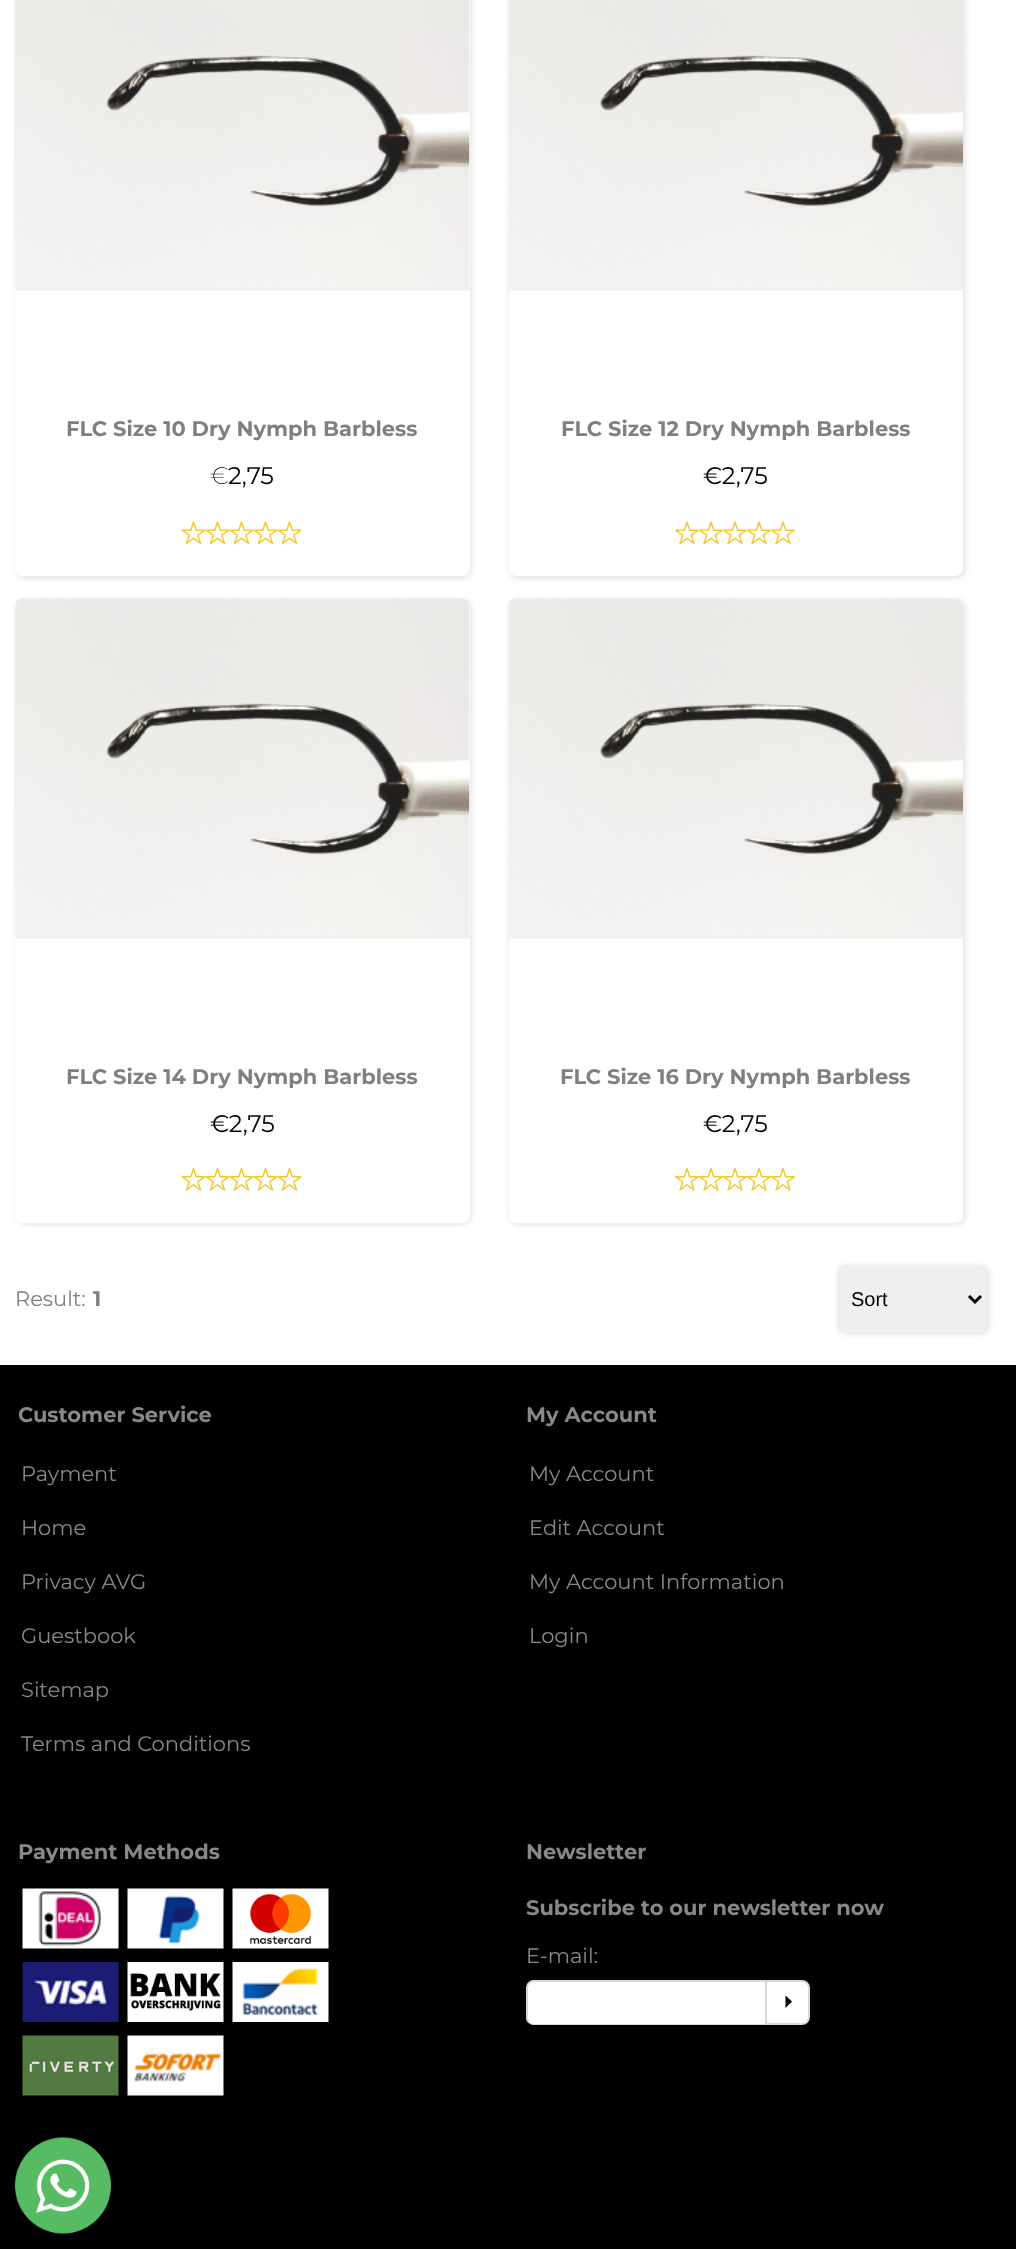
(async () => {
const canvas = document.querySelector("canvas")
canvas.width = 1016
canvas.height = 2249
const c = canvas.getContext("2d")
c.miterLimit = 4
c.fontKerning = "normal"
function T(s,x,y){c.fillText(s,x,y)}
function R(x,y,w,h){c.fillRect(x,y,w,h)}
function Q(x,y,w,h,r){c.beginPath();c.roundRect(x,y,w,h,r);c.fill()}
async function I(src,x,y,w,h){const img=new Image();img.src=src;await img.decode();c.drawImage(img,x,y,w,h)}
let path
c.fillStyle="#fff"
R(0,0,1016,2249)
c.fillStyle="#0000001f"
c.filter="blur(3px)"
c.beginPath()
c.roundRect(17,-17,454,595,8)
c.fill()
c.filter="none"
c.fillStyle="#fff"
Q(15,-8,455,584,8)
await I("1.png",15,0,455,291)
c.font="bold 21px Montserrat"
c.fillStyle="#808080"
T("FLC Size 10 Dry Nymph Barbless",66,436)
c.font="200 24px Montserrat"
c.fillStyle="#000"
T("€",210,484)
c.font="24px Montserrat"
T("2,75",228,484)
await I("2.png",181,521,25,24)
await I("3.png",205,521,25,24)
await I("3.png",229,521,25,24)
await I("3.png",253,521,25,24)
await I("3.png",277,521,25,24)
c.fillStyle="#0000001f"
c.filter="blur(3px)"
c.beginPath()
c.roundRect(510,-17,455,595,8)
c.fill()
c.filter="none"
c.fillStyle="#fff"
Q(509,-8,454,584,8)
await I("4.png",508,0,455,291)
c.font="bold 21px Montserrat"
c.fillStyle="#808080"
T("FLC Size 12 Dry Nymph Barbless",561,436)
c.font="24px Montserrat"
c.fillStyle="#000"
T("€2,75",703,484)
await I("5.png",675,521,24,24)
await I("5.png",699,521,24,24)
await I("5.png",723,521,24,24)
await I("5.png",747,521,24,24)
await I("5.png",771,521,24,24)
c.fillStyle="#0000001f"
c.filter="blur(3px)"
c.beginPath()
c.roundRect(17,600,454,624,8)
c.fill()
c.filter="none"
c.fillStyle="#fff"
Q(15,599,455,624,8)
await I("6.png",15,598,455,341)
c.font="bold 21px Montserrat"
c.fillStyle="#808080"
T("FLC Size 14 Dry Nymph Barbless",66,1084)
c.font="24px Montserrat"
c.fillStyle="#000"
T("€2,75",210,1132)
await I("7.png",181,1167,25,24)
await I("8.png",205,1167,25,24)
await I("8.png",229,1167,25,24)
await I("8.png",253,1167,25,24)
await I("8.png",277,1167,25,24)
c.fillStyle="#0000001f"
c.filter="blur(3px)"
c.beginPath()
c.roundRect(510,600,455,624,8)
c.fill()
c.filter="none"
c.fillStyle="#fff"
Q(509,599,454,624,8)
await I("9.png",508,598,455,341)
c.font="bold 21px Montserrat"
c.fillStyle="#808080"
T("FLC Size 16 Dry Nymph Barbless",560,1084)
c.font="24px Montserrat"
c.fillStyle="#000"
T("€2,75",703,1132)
await I("10.png",675,1167,24,24)
await I("10.png",699,1167,24,24)
await I("10.png",723,1167,24,24)
await I("10.png",747,1167,24,24)
await I("10.png",771,1167,24,24)
c.font="21px Montserrat"
c.fillStyle="#808080"
T("Result:",15,1306)
c.font="bold 21px Montserrat"
T("1",93,1306)
c.fillStyle="#0000001f"
c.filter="blur(3px)"
c.beginPath()
c.roundRect(839,1266,150,68,8)
c.fill()
c.filter="none"
c.fillStyle="#efefef"
Q(837,1265,150,67,8)
path = new Path2D("M969 1296l6 6l6-6")
c.strokeStyle="#000"
c.lineWidth=3
c.stroke(path)
c.font="20px Liberation Sans"
c.fillStyle="#000"
T("Sort",851,1306)
R(0,1365,1016,884)
c.font="bold 21px Montserrat"
c.fillStyle="#888"
T("Customer Service",18,1422)
c.font="21px Montserrat"
T("Payment",21,1481)
T("Home",21,1535)
T("Privacy AVG",21,1589)
T("Guestbook",21,1643)
T("Sitemap",21,1697)
T("Terms and Conditions",21,1751)
c.font="bold 21px Montserrat"
T("My Account",526,1422)
c.font="21px Montserrat"
T("My Account",529,1481)
T("Edit Account",529,1535)
T("My Account Information",529,1589)
T("Login",529,1643)
c.font="bold 21px Montserrat"
T("Payment Methods",18,1859)
await I("11.png",22,1888,97,61)
await I("12.png",127,1888,97,61)
await I("13.png",232,1888,97,61)
await I("14.png",22,1962,97,60)
await I("15.png",127,1962,97,60)
await I("16.png",232,1962,97,60)
await I("17.png",22,2035,97,61)
await I("18.png",127,2035,97,61)
T("Newsletter",526,1859)
T("Subscribe to our newsletter now",526,1915)
c.font="21px Montserrat"
T("E-mail:",526,1963)
c.fillStyle="#fff"
c.beginPath()
c.roundRect(527,1980,238,45,[8,0,0,8])
c.fill()
c.fillStyle="#d9d9d9"
path = new Path2D("M534 1980h231v45h-231c-4 0-8-3-8-7v-30c0-5 4-8 8-8zm0 2h231v42h-231c-3 0-6-3-6-6v-30c0-4 3-6 6-6z")
c.fill(path,"evenodd")
c.fillStyle="#fff"
c.beginPath()
c.roundRect(766,1981,43,43,[0,7,7,0])
c.fill()
c.strokeStyle="#d9d9d9"
c.lineWidth=2
c.stroke()
c.fillStyle="#000"
path = new Path2D("M785.5 2008l6.5-6.5l-6.5-6z")
c.fill(path)
await I("19.png",15,2137,96,97)
})()
